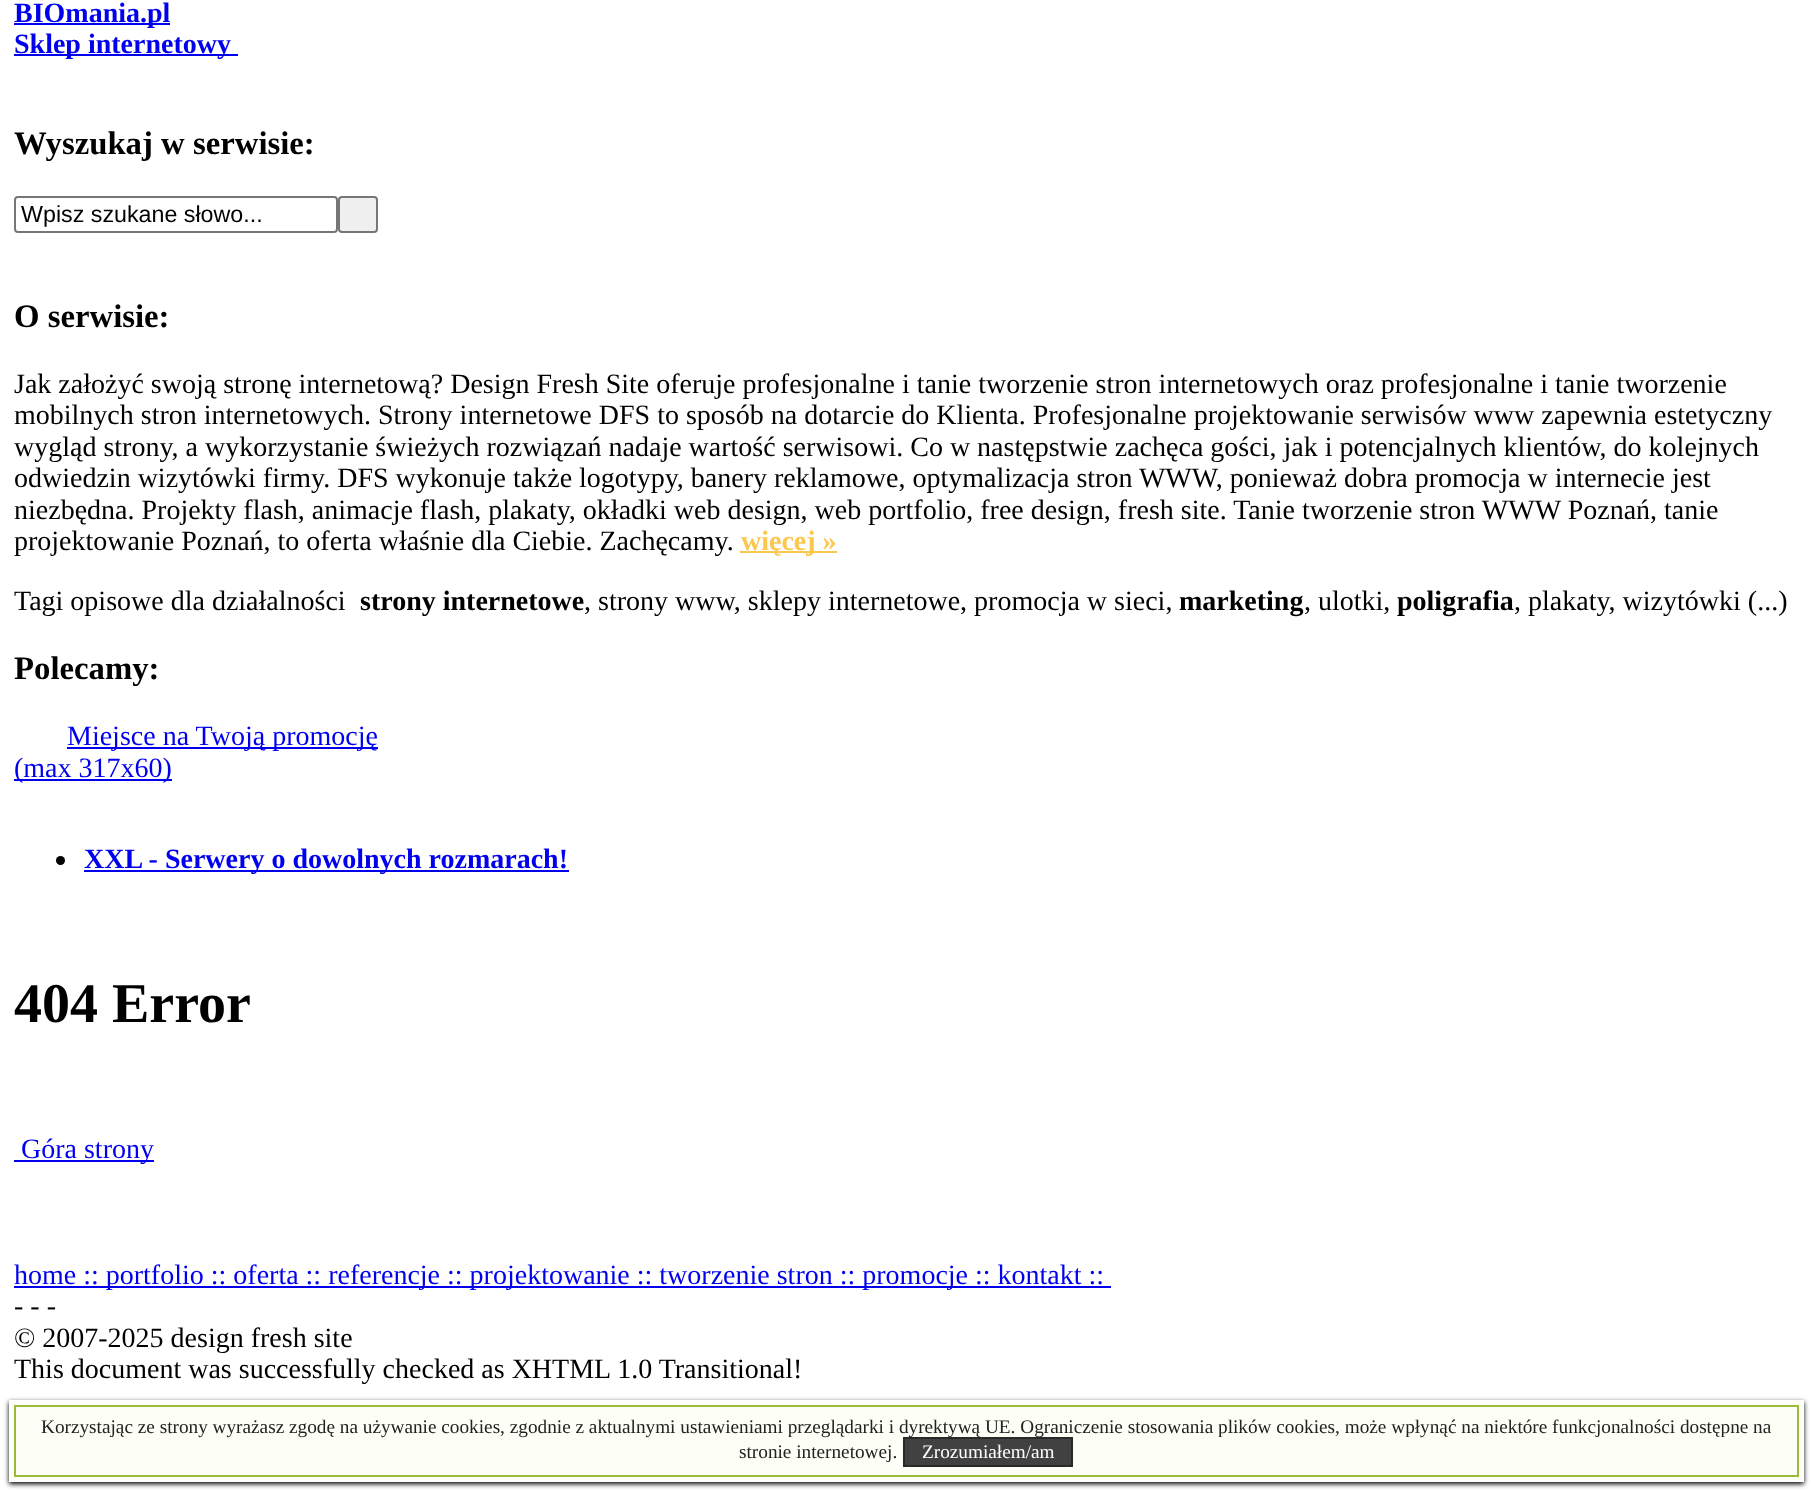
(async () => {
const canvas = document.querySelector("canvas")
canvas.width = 1812
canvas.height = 1491
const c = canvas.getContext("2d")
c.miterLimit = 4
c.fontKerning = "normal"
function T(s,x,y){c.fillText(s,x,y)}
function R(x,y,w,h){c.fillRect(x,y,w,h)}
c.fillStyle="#fff"
R(0,0,1812,1491)
c.fillStyle="#00e"
R(14,23,156,2)
c.font="bold 28px Liberation Serif"
T("BIOmania.pl",14,22)
R(14,54,224,2)
T("Sklep internetowy",14,53)
c.font="bold 32.75px Liberation Serif"
c.fillStyle="#000"
T("Wyszukaj w serwisie:",14,154)
c.beginPath()
c.roundRect(15,197,322,35,3)
c.strokeStyle="#767676"
c.lineWidth=2
c.stroke()
c.font="23.25px Liberation Sans"
T("Wpisz szukane słowo...",21,222)
c.fillStyle="#efefef"
c.beginPath()
c.roundRect(339,197,38,35,3)
c.fill()
c.stroke()
c.font="bold 32.75px Liberation Serif"
c.fillStyle="#000"
T("O serwisie:",14,327)
c.font="28px Liberation Serif"
T("Jak założyć swoją stronę internetową? Design Fresh Site oferuje profesjonalne i tanie tworzenie stron internetowych oraz profesjonalne i tanie tworzenie",14,393)
T("mobilnych stron internetowych. Strony internetowe DFS to sposób na dotarcie do Klienta. Profesjonalne projektowanie serwisów www zapewnia estetyczny",14,424)
T("wygląd strony, a wykorzystanie świeżych rozwiązań nadaje wartość serwisowi. Co w następstwie zachęca gości, jak i potencjalnych klientów, do kolejnych",14,456)
T("odwiedzin wizytówki firmy. DFS wykonuje także logotypy, banery reklamowe, optymalizacja stron WWW, ponieważ dobra promocja w internecie jest",14,487)
T("niezbędna. Projekty flash, animacje flash, plakaty, okładki web design, web portfolio, free design, fresh site. Tanie tworzenie stron WWW Poznań, tanie",14,519)
T("projektowanie Poznań, to oferta właśnie dla Ciebie. Zachęcamy.",14,550)
c.fillStyle="#fbc74d"
R(740,551,97,2)
c.font="bold 28px Liberation Serif"
T("więcej »",741,550)
c.font="28px Liberation Serif"
c.fillStyle="#000"
T("Tagi opisowe dla działalności",14,610)
c.font="bold 28px Liberation Serif"
T("strony internetowe",360,610)
c.font="28px Liberation Serif"
T(", strony www, sklepy internetowe, promocja w sieci,",584,610)
c.font="bold 28px Liberation Serif"
T("marketing",1179,610)
c.font="28px Liberation Serif"
T(", ulotki,",1304,610)
c.font="bold 28px Liberation Serif"
T("poligrafia",1397,610)
c.font="28px Liberation Serif"
T(", plakaty, wizytówki (...)",1514,610)
c.font="bold 32.75px Liberation Serif"
T("Polecamy:",14,679)
c.fillStyle="#00e"
R(67,747,311,2)
c.font="28px Liberation Serif"
T("Miejsce na Twoją promocję",67,745)
R(14,779,158,2)
T("(max 317x60)",14,777)
c.fillStyle="#000"
c.beginPath()
c.arc(60.5,860.5,4.5,0,7)
c.fill()
c.fillStyle="#00e"
R(84,870,485,2)
c.font="bold 28px Liberation Serif"
T("XXL - Serwery o dowolnych rozmarach!",84,868)
c.font="bold 56px Liberation Serif"
c.fillStyle="#000"
T("404 Error",14,1022)
c.fillStyle="#00e"
R(14,1160,140,2)
c.font="28px Liberation Serif"
T("Góra strony",21,1158)
R(14,1286,1097,2)
T("home :: portfolio :: oferta :: referencje :: projektowanie :: tworzenie stron :: promocje :: kontakt ::",14,1284)
c.fillStyle="#000"
T("- - -",14,1315)
T("© 2007-2025 design fresh site",14,1347)
T("This document was successfully checked as XHTML 1.0 Transitional!",14,1378)
c.filter="blur(2.5px)"
c.beginPath()
c.rect(9,1402,1795,82)
c.fill()
c.filter="none"
c.fillStyle="#fdfef6"
c.beginPath()
c.rect(10,1401,1793,80)
c.fill()
c.strokeStyle="#fff"
c.stroke()
c.strokeStyle="#9bbb3e"
c.strokeRect(15,1406,1783,70)
c.font="19.25px Liberation Serif"
c.fillStyle="#222"
T("Korzystając ze strony wyrażasz zgodę na używanie cookies, zgodnie z aktualnymi ustawieniami przeglądarki i dyrektywą UE. Ograniczenie stosowania plików cookies, może wpłynąć na niektóre funkcjonalności dostępne na",41,1433)
T("stronie internetowej.",739,1458)
c.fillStyle="#414141"
c.beginPath()
c.rect(904,1438,168,28)
c.fill()
c.strokeStyle="#292929"
c.stroke()
c.fillStyle="#fff"
T("Zrozumiałem/am",922,1458)
})()
